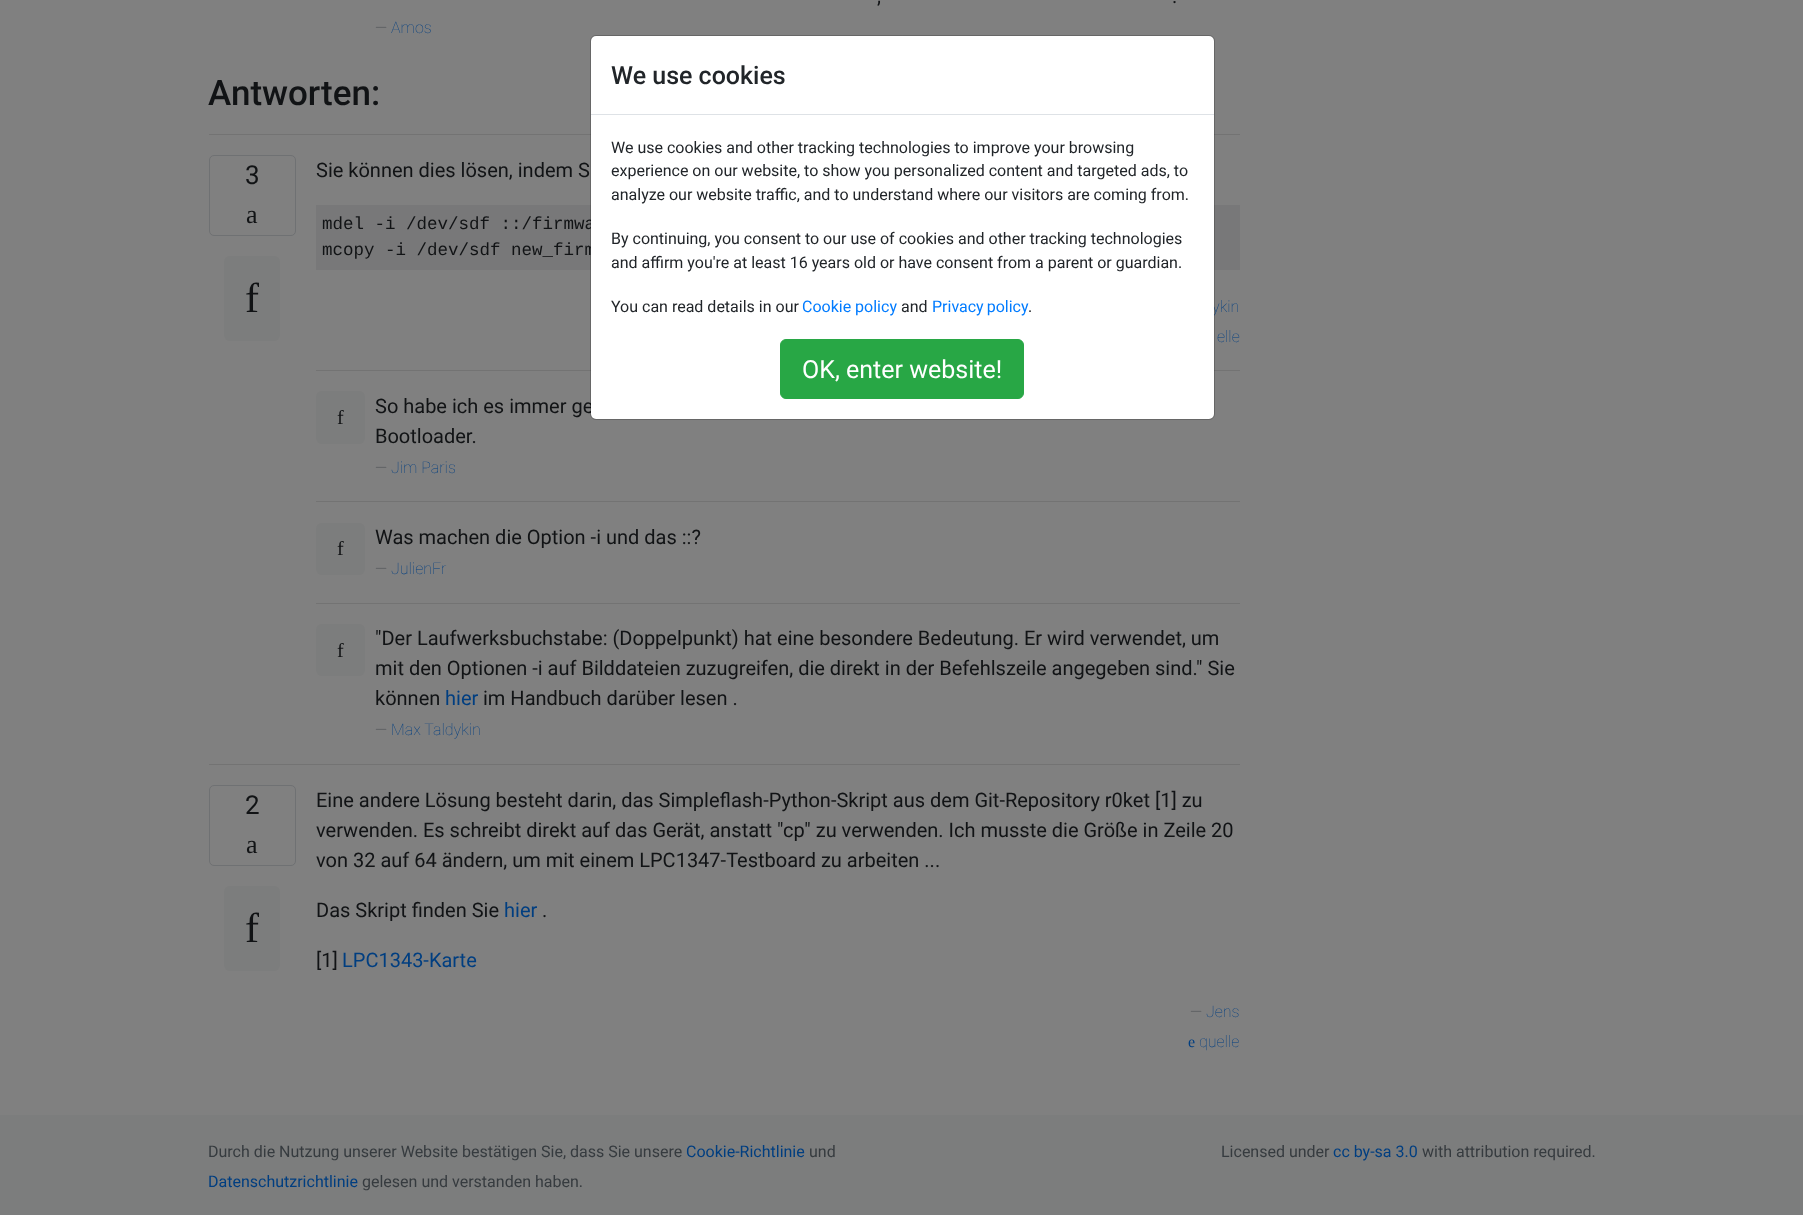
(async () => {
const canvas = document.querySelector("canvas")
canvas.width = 1803
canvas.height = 1215
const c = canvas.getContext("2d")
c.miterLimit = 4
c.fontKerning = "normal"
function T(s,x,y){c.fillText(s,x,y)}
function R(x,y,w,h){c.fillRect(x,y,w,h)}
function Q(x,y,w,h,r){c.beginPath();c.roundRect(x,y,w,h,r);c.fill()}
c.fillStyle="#808080"
R(0,0,1803,1215)
c.font="20px Roboto"
c.fillStyle="#111315"
T(",",877,3)
T(".",1172,3)
c.font="100 16px Roboto"
c.fillStyle="#363b3f"
T("—",375,33)
c.fillStyle="#003e80"
T("Amos",391,33)
c.font="500 35px Roboto"
c.fillStyle="#111315"
T("Antworten:",208,105)
c.fillStyle="#737373"
R(209,134,1031,1)
c.beginPath()
c.roundRect(209.5,155.5,86,80,4.5)
c.strokeStyle="#6f7173"
c.stroke()
c.font="26px Roboto"
c.fillStyle="#111315"
T("3",245,184)
c.font="26px Liberation Serif"
T("a",246,223)
c.fillStyle="#7c7d7d"
Q(224,256,56,85,6)
c.font="42px Liberation Serif"
c.fillStyle="#111315"
T("f",245,312)
c.font="20px Roboto"
T("Sie können dies lösen, indem S",316,177)
c.fillStyle="#787879"
R(316,205,924,65)
c.font="17.5px Liberation Mono"
c.fillStyle="#111315"
T("mdel -i /dev/sdf ::/firmwa",322,229)
T("mcopy -i /dev/sdf new_firm",322,255)
c.font="100 16px Roboto"
c.fillStyle="#003e80"
T("ykin",1212,312)
T("elle",1217,342)
c.fillStyle="#737373"
R(316,370,924,1)
c.fillStyle="#7c7d7d"
Q(316,391,49,53,6)
c.font="20px Liberation Serif"
c.fillStyle="#111315"
T("f",337,424)
c.font="20px Roboto"
T("So habe ich es immer ge",375,413)
T("Bootloader.",375,443)
c.font="100 16px Roboto"
c.fillStyle="#363b3f"
T("—",375,473)
c.fillStyle="#003e80"
T("Jim Paris",391,473)
c.fillStyle="#737373"
R(316,501,924,1)
c.fillStyle="#7c7d7d"
Q(316,523,49,52,6)
c.font="20px Liberation Serif"
c.fillStyle="#111315"
T("f",337,555)
c.font="20px Roboto"
T("Was machen die Option -i und das ::?",375,544)
c.font="100 16px Roboto"
c.fillStyle="#363b3f"
T("—",375,574)
c.fillStyle="#003e80"
T("JulienFr",391,574)
c.fillStyle="#737373"
R(316,603,924,1)
c.fillStyle="#7c7d7d"
Q(316,624,49,52,6)
c.font="20px Liberation Serif"
c.fillStyle="#111315"
T("f",337,657)
c.font="20px Roboto"
T("\"Der Laufwerksbuchstabe: (Doppelpunkt) hat eine besondere Bedeutung. Er wird verwendet, um",375,645)
T("mit den Optionen -i auf Bilddateien zuzugreifen, die direkt in der Befehlszeile angegeben sind.\" Sie",375,675)
T("können",375,705)
c.fillStyle="#003e80"
T("hier",445,705)
c.fillStyle="#111315"
T("im Handbuch darüber lesen .",483,705)
c.font="100 16px Roboto"
c.fillStyle="#363b3f"
T("—",375,735)
c.fillStyle="#003e80"
T("Max Taldykin",391,735)
c.fillStyle="#737373"
R(209,764,1031,1)
c.beginPath()
c.roundRect(209.5,785.5,86,80,4.5)
c.stroke()
c.font="26px Roboto"
c.fillStyle="#111315"
T("2",245,814)
c.font="26px Liberation Serif"
T("a",246,853)
c.fillStyle="#7c7d7d"
Q(224,886,56,85,6)
c.font="42px Liberation Serif"
c.fillStyle="#111315"
T("f",245,942)
c.font="20px Roboto"
T("Eine andere Lösung besteht darin, das Simpleflash-Python-Skript aus dem Git-Repository r0ket [1] zu",316,807)
T("verwenden. Es schreibt direkt auf das Gerät, anstatt \"cp\" zu verwenden. Ich musste die Größe in Zeile 20",316,837)
T("von 32 auf 64 ändern, um mit einem LPC1347-Testboard zu arbeiten ...",316,867)
T("Das Skript finden Sie",316,917)
c.fillStyle="#003e80"
T("hier",504,917)
c.fillStyle="#111315"
T(".",542,917)
T("[1]",316,967)
c.fillStyle="#003e80"
T("LPC1343-Karte",342,967)
c.font="100 16px Roboto"
c.fillStyle="#363b3f"
T("—",1190,1017)
c.fillStyle="#003e80"
T("Jens",1206,1017)
c.font="16px Liberation Serif"
T("e",1188,1047)
c.font="100 16px Roboto"
T("quelle",1199,1047)
c.fillStyle="#fff"
Q(591,36,623,383,5)
c.beginPath()
c.roundRect(590.5,35.5,624,384,5.5)
c.strokeStyle="#00000033"
c.stroke()
c.fillStyle="#dee2e6"
R(591,114,623,1)
c.font="500 25px Roboto"
c.fillStyle="#212529"
T("We use cookies",611,84)
c.font="16px Roboto"
T("We use cookies and other tracking technologies to improve your browsing",611,153)
T("experience on our website, to show you personalized content and targeted ads, to",611,176)
T("analyze our website traffic, and to understand where our visitors are coming from.",611,200)
T("By continuing, you consent to our use of cookies and other tracking technologies",611,244)
T("and affirm you're at least 16 years old or have consent from a parent or guardian.",611,268)
T("You can read details in our",611,312)
c.fillStyle="#007bff"
T("Cookie policy",802,312)
c.fillStyle="#212529"
T("and",901,312)
c.wordSpacing="-1px"
c.fillStyle="#007bff"
T("Privacy policy",932,312)
c.wordSpacing="0px"
c.fillStyle="#212529"
T(".",1028,312)
c.fillStyle="#28a745"
c.beginPath()
c.roundRect(780.5,339.5,243,59,5.5)
c.fill()
c.strokeStyle="#28a745"
c.stroke()
c.font="25px Roboto"
c.fillStyle="#fff"
T("OK, enter website!",802,378)
c.fillStyle="#7c7d7d"
R(0,1115,1803,100)
c.font="16px Roboto"
c.fillStyle="#363b3f"
T("Durch die Nutzung unserer Website bestätigen Sie, dass Sie unsere",208,1157)
c.fillStyle="#003e80"
T("Cookie-Richtlinie",686,1157)
c.fillStyle="#363b3f"
T("und",809,1157)
c.fillStyle="#003e80"
T("Datenschutzrichtlinie",208,1187)
c.fillStyle="#363b3f"
T("gelesen und verstanden haben.",362,1187)
T("Licensed under",1221,1157)
c.fillStyle="#003e80"
T("cc by-sa 3.0",1333,1157)
c.fillStyle="#363b3f"
T("with attribution required.",1422,1157)
})()
